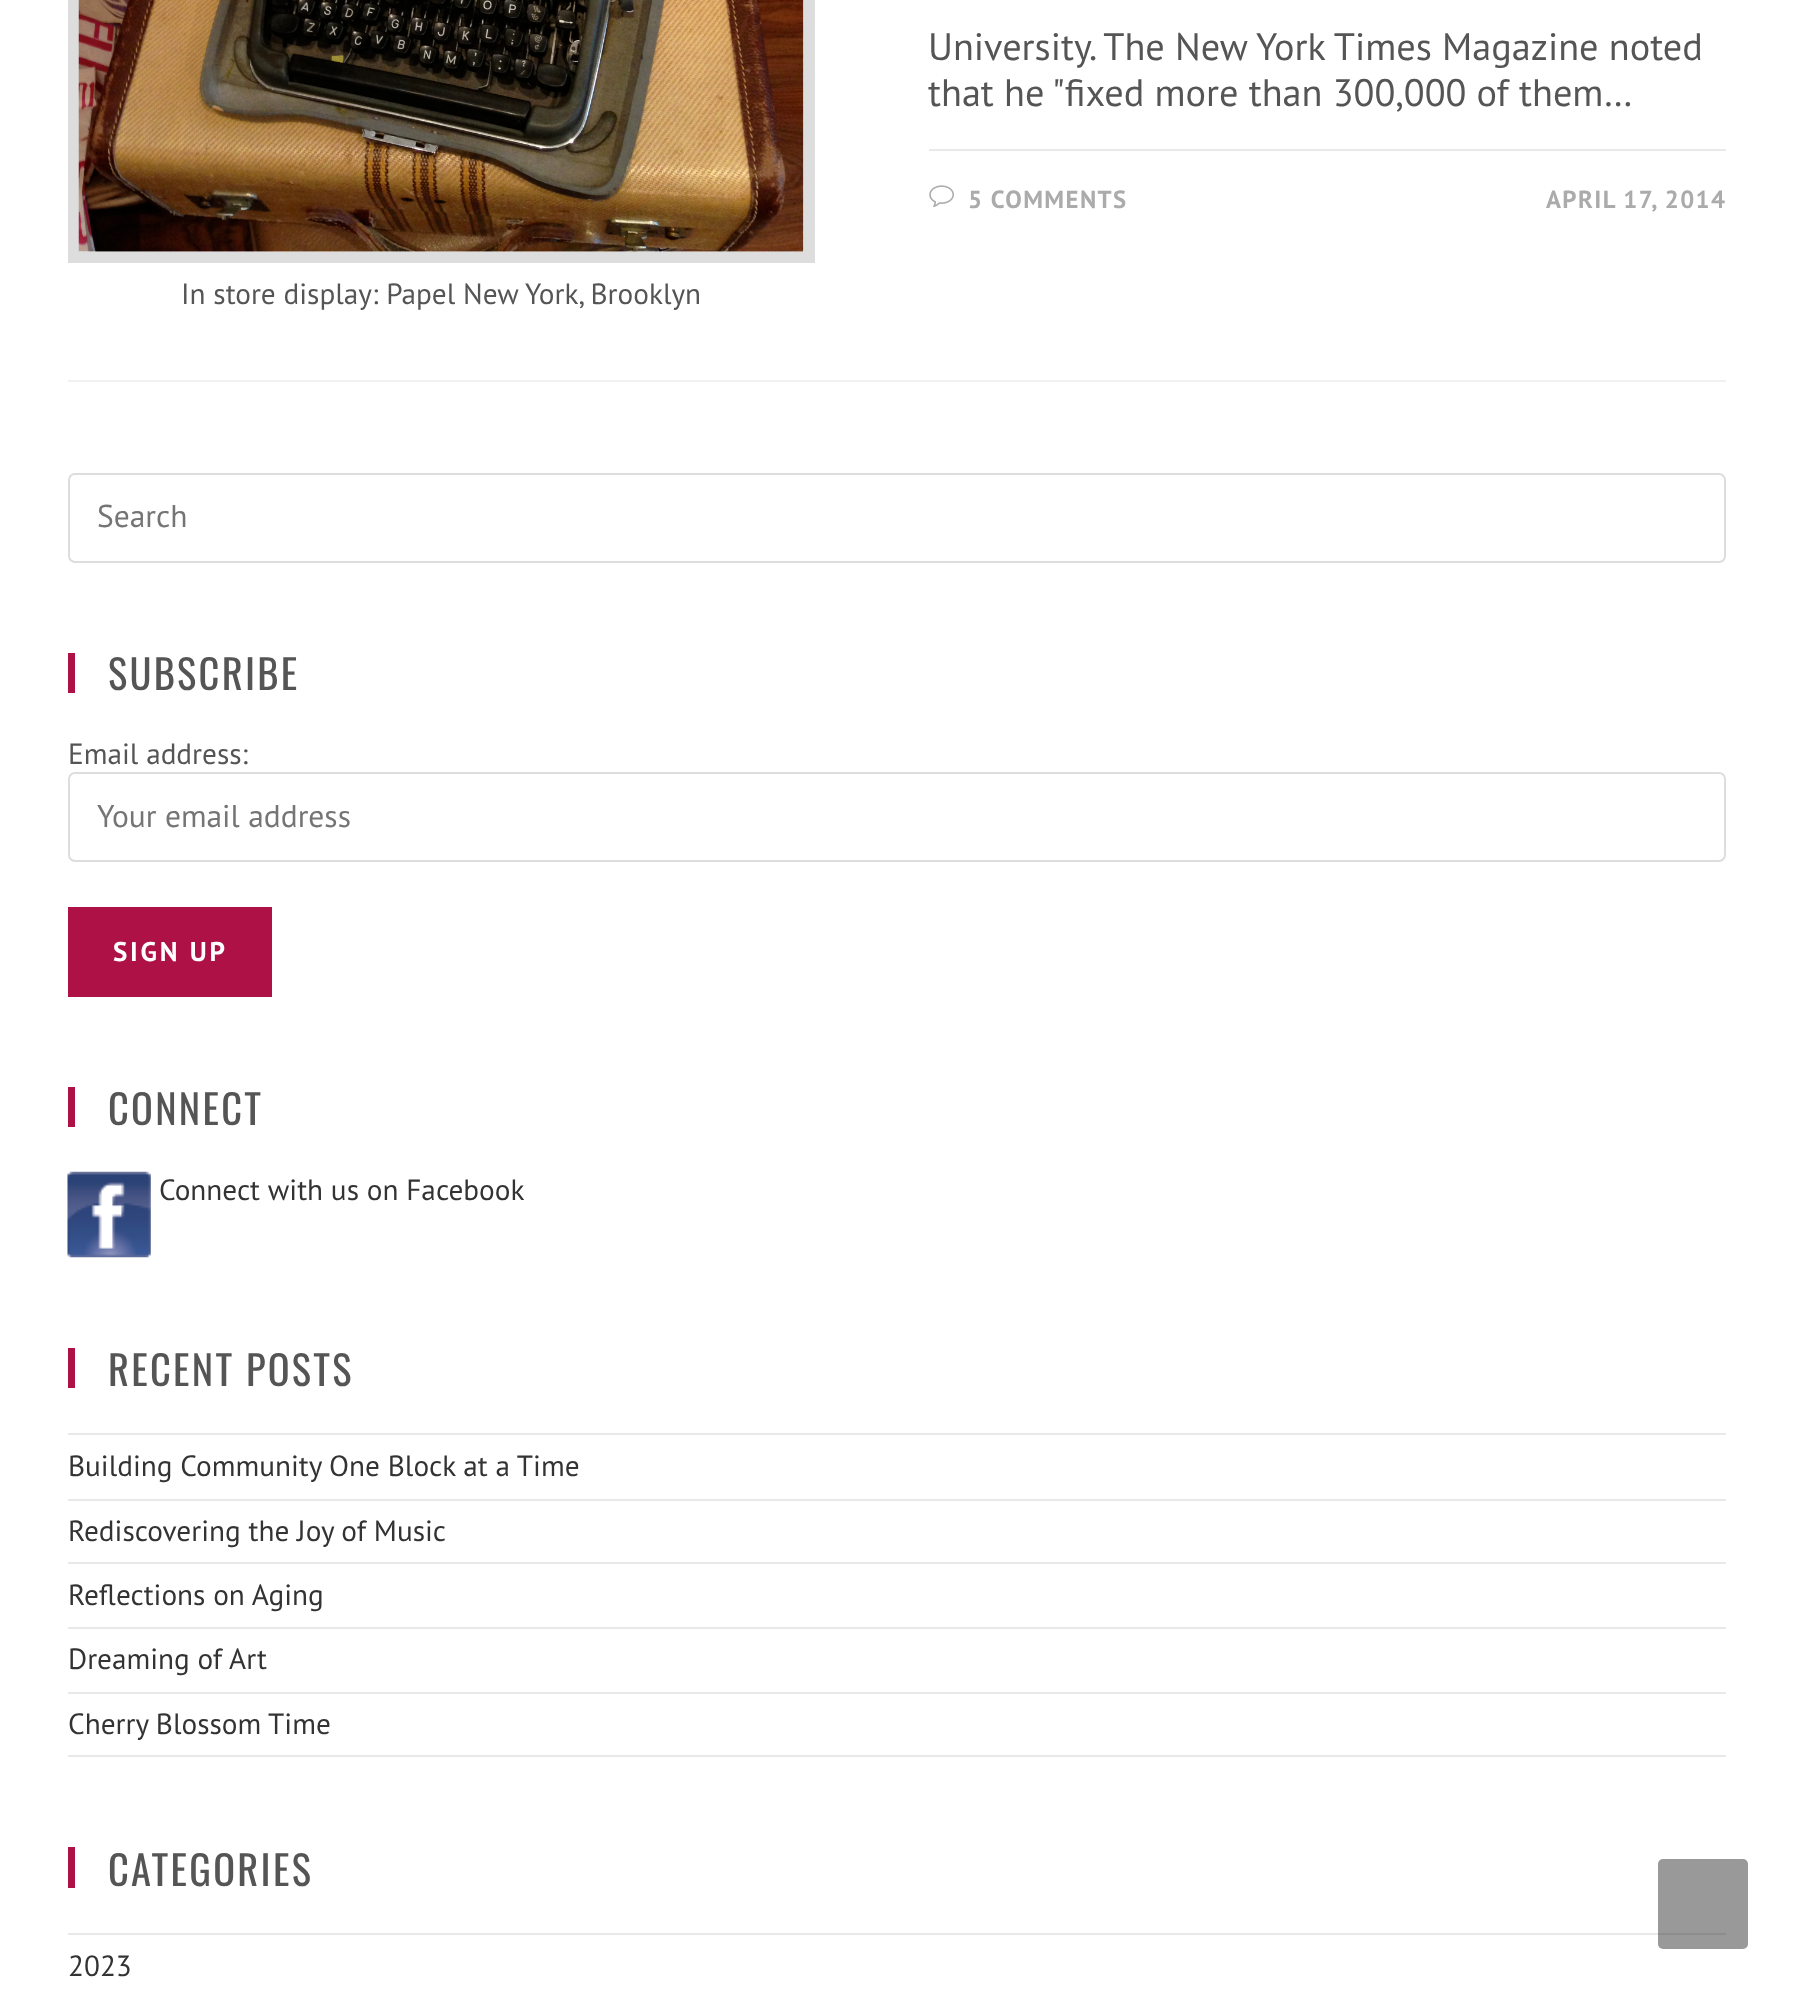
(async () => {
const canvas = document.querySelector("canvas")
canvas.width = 1793
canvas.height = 1993
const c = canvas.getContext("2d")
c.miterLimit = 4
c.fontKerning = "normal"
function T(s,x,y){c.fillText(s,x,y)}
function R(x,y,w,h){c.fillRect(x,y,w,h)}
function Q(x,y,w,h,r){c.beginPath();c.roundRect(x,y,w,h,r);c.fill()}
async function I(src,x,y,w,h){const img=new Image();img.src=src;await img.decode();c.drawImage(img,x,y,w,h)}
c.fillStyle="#fff"
R(0,0,1793,1993)
c.fillStyle="#f1f1f1"
R(68,380,1658,2)
c.font="38.25px PT Sans"
c.fillStyle="#555"
T("University. The New York Times Magazine noted",928,60)
T("that he \"fixed more than 300,000 of them…",928,106)
c.fillStyle="#e9e9e9"
R(929,149,797,2)
await I("1.png",929,185,25,22)
c.letterSpacing="1.4px"
c.font="bold 24.75px PT Sans"
c.fillStyle="#ababab"
T("5 COMMENTS",968,208)
T("APRIL 17, 2014",1546,208)
c.strokeStyle="#ddd"
c.lineWidth=11
c.strokeRect(73.5,-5.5,736,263)
await I("2.png",78,0,726,252)
c.letterSpacing="0px"
c.font="29.25px PT Sans"
c.fillStyle="#555"
T("In store display: Papel New York, Brooklyn",181,304)
c.beginPath()
c.roundRect(69,474,1656,88,6)
c.lineWidth=2
c.stroke()
c.font="31.5px PT Sans"
c.fillStyle="#757575"
T("Search",97,527)
c.fillStyle="#ad1145"
R(68,653,7,40)
c.letterSpacing="2.25px"
c.font="40.5px Oswald"
c.fillStyle="#555"
T("SUBSCRIBE",108,690)
c.letterSpacing="0px"
c.font="29.25px PT Sans"
T("Email address:",68,764)
c.beginPath()
c.roundRect(69,773,1656,88,6)
c.stroke()
c.font="31.5px PT Sans"
c.fillStyle="#757575"
T("Your email address",97,827)
c.fillStyle="#ad1145"
R(68,907,204,90)
c.letterSpacing="2.75px"
c.font="bold 27px PT Sans"
c.fillStyle="#fff"
T("SIGN UP",113,961)
c.fillStyle="#ad1145"
R(68,1087,7,40)
c.letterSpacing="2.25px"
c.font="40.5px Oswald"
c.fillStyle="#555"
T("CONNECT",108,1125)
await I("3.png",67,1171,84,87)
c.letterSpacing="0px"
c.font="29.25px PT Sans"
c.fillStyle="#333"
T("Connect with us on Facebook",159,1200)
c.fillStyle="#ad1145"
R(68,1348,7,40)
c.letterSpacing="2.25px"
c.font="40.5px Oswald"
c.fillStyle="#555"
T("RECENT POSTS",108,1386)
c.fillStyle="#e9e9e9"
R(68,1433,1658,2)
R(68,1499,1658,2)
c.letterSpacing="0px"
c.font="29.25px PT Sans"
c.fillStyle="#333"
T("Building Community One Block at a Time",68,1476)
c.fillStyle="#e9e9e9"
R(68,1562,1658,2)
c.fillStyle="#333"
T("Rediscovering the Joy of Music",68,1541)
c.fillStyle="#e9e9e9"
R(68,1627,1658,2)
c.fillStyle="#333"
T("Reflections on Aging",68,1605)
c.fillStyle="#e9e9e9"
R(68,1692,1658,2)
c.fillStyle="#333"
T("Dreaming of Art",68,1669)
c.fillStyle="#e9e9e9"
R(68,1755,1658,2)
c.fillStyle="#333"
T("Cherry Blossom Time",68,1734)
c.fillStyle="#ad1145"
R(68,1847,7,41)
c.letterSpacing="2.25px"
c.font="40.5px Oswald"
c.fillStyle="#555"
T("CATEGORIES",108,1886)
c.fillStyle="#e9e9e9"
R(68,1933,1658,2)
c.letterSpacing="0px"
c.font="29.25px PT Sans"
c.fillStyle="#333"
T("2023",68,1976)
c.fillStyle="#00000066"
Q(1658,1859,90,90,5)
})()
